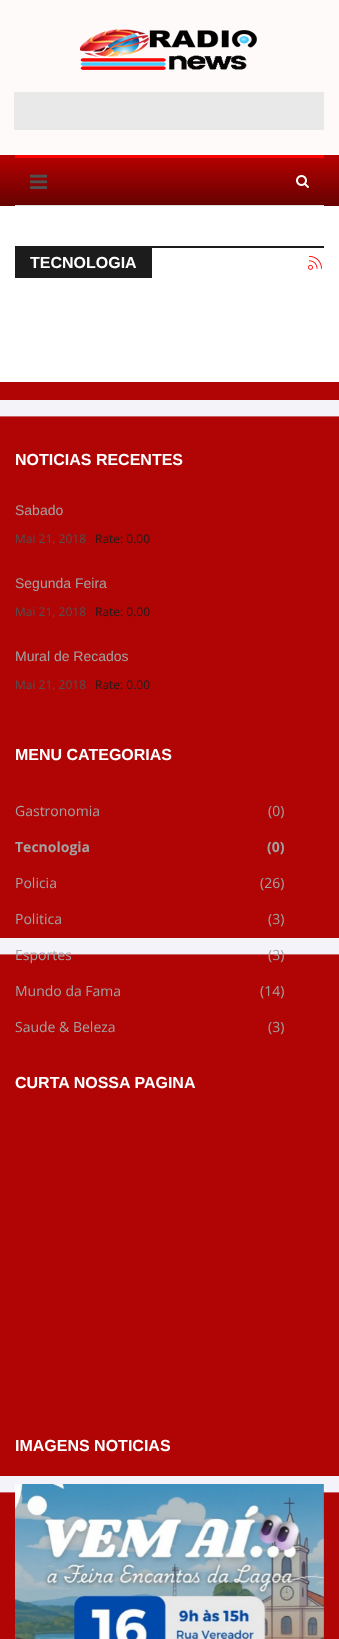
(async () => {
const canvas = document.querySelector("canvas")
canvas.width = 339
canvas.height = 1639
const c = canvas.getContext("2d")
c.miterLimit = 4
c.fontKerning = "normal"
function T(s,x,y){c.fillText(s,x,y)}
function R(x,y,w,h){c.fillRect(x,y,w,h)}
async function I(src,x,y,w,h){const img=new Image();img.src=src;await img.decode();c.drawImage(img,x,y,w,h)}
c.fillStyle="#fff"
R(0,0,339,1639)
c.fillStyle="#fffafa"
R(0,0,339,155)
await I("1.png",80,29,177,41)
c.fillStyle="#e9e9e9"
R(14,92,310,38)
await I("2.png",0,155,339,51)
c.fillStyle="#f00"
R(15,155,309,3)
c.fillStyle="#dedede"
R(15,205,309,1)
c.fillStyle="#b40101"
R(15,158,309,1)
await I("3.png",30,174,18,15)
await I("4.png",296,175,13,13)
c.fillStyle="#1c1c1c"
R(15,246,309,2)
R(15,248,137,30)
c.font="bold 16px Arimo"
c.fillStyle="#fff"
T("TECNOLOGIA",30,268)
await I("5.png",308,255,14,15)
await I("6.png",0,382,339,1257)
T("NOTICIAS RECENTES",15,465)
c.font="14px Arimo"
c.fillStyle="#a3a3a3"
T("Sabado",15,515)
c.font="12px Open Sans"
c.fillStyle="#515151"
T("Mai 21, 2018",15,543)
c.fillStyle="#1c1c1c"
T("Rate: 0.00",95,543)
c.font="14px Arimo"
c.fillStyle="#a3a3a3"
T("Segunda Feira",15,588)
c.font="12px Open Sans"
c.fillStyle="#515151"
T("Mai 21, 2018",15,616)
c.fillStyle="#1c1c1c"
T("Rate: 0.00",95,616)
c.font="14px Arimo"
c.fillStyle="#a3a3a3"
T("Mural de Recados",15,661)
c.font="12px Open Sans"
c.fillStyle="#515151"
T("Mai 21, 2018",15,689)
c.fillStyle="#1c1c1c"
T("Rate: 0.00",95,689)
c.font="bold 16px Arimo"
c.fillStyle="#fff"
T("MENU CATEGORIAS",15,760)
c.font="14px Open Sans"
c.fillStyle="#a3a3a3"
T("Gastronomia",15,816)
T("(0)",268,816)
c.font="bold 14px Open Sans"
T("Tecnologia",15,852)
T("(0)",267,852)
c.font="14px Open Sans"
T("Policia",15,888)
T("(26)",260,888)
T("Politica",15,924)
T("(3)",268,924)
T("Esportes",15,960)
T("(3)",268,960)
T("Mundo da Fama",15,996)
T("(14)",260,996)
T("Saude & Beleza",15,1032)
T("(3)",268,1032)
c.font="bold 16px Arimo"
c.fillStyle="#fff"
T("CURTA NOSSA PAGINA",15,1088)
T("IMAGENS NOTICIAS",15,1451)
await I("7.png",15,1484,309,155)
})()
